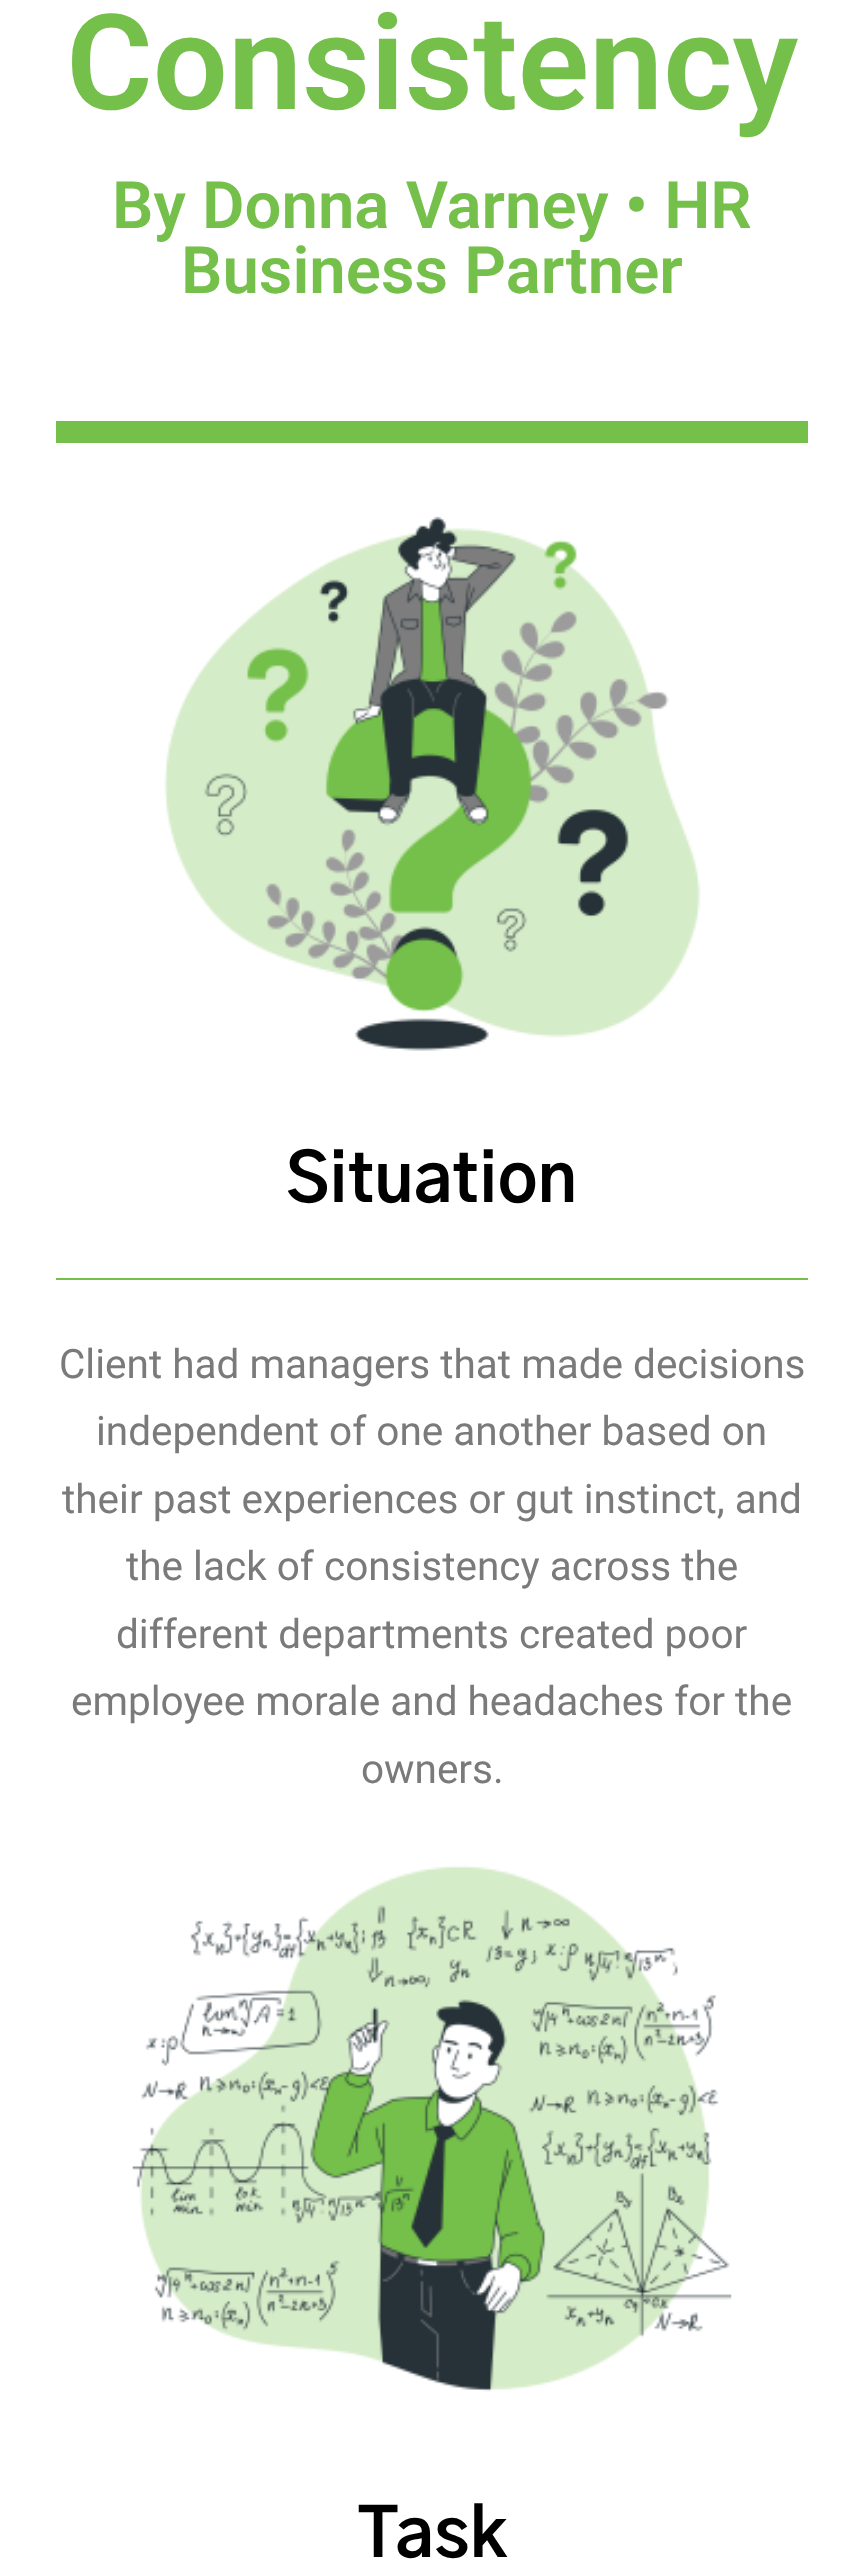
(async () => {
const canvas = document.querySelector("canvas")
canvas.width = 864
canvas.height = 2574
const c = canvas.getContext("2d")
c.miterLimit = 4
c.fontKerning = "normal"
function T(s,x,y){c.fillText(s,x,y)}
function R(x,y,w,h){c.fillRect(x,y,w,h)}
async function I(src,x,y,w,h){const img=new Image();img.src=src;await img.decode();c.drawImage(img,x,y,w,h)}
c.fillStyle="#fff"
R(0,0,864,2574)
c.font="600 132.75px Roboto"
c.fillStyle="#74c04a"
T("Consistency",66,109)
c.font="600 65.25px Roboto"
T("By Donna Varney • HR",112,228)
T("Business Partner",181,293)
R(56,421,752,22)
await I("1.png",164,516,537,535)
c.font="bold 67.5px 'Gothic A1'"
c.fillStyle="#000"
T("Situation",286,1202)
c.fillStyle="#74c04a"
R(56,1278,752,2)
c.font="40.5px Roboto"
c.fillStyle="#7a7a7a"
T("Client had managers that made decisions",59,1378)
T("independent of one another based on",96,1445)
T("their past experiences or gut instinct, and",62,1513)
T("the lack of consistency across the",126,1580)
T("different departments created poor",116,1648)
T("employee morale and headaches for the",71,1715)
T("owners.",361,1783)
await I("2.png",132,1865,600,527)
c.font="bold 67.5px 'Gothic A1'"
c.fillStyle="#000"
T("Task",358,2557)
})()
